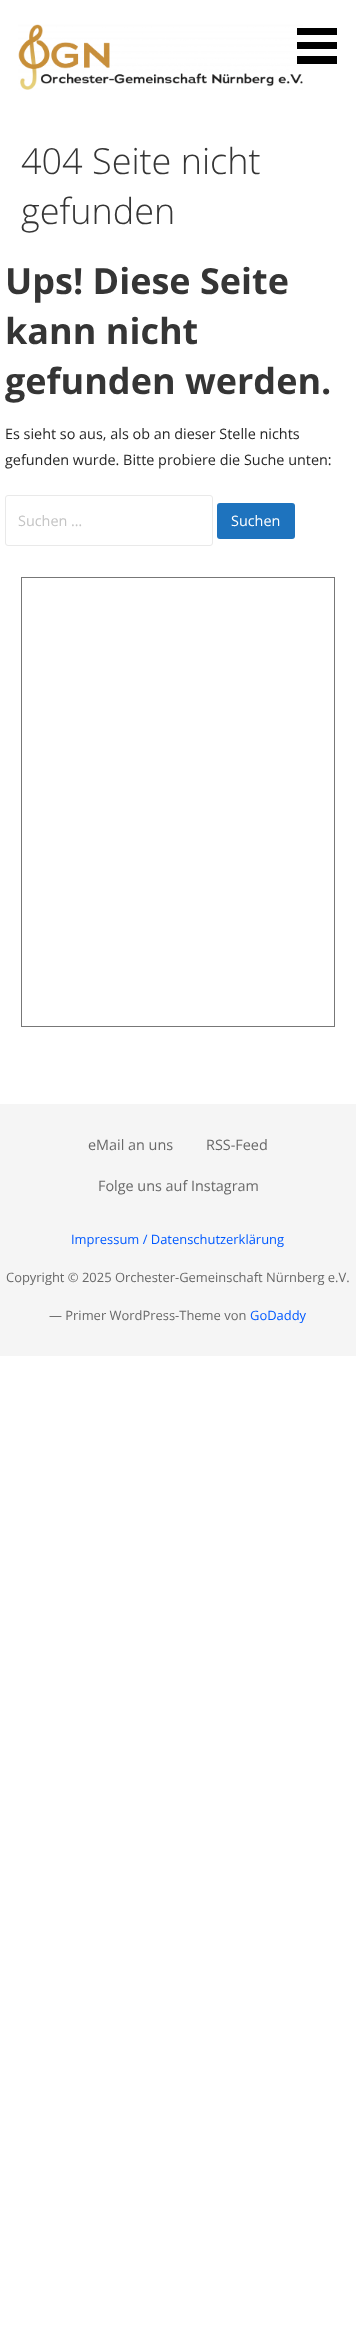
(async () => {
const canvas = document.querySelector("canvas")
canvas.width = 356
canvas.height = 2328
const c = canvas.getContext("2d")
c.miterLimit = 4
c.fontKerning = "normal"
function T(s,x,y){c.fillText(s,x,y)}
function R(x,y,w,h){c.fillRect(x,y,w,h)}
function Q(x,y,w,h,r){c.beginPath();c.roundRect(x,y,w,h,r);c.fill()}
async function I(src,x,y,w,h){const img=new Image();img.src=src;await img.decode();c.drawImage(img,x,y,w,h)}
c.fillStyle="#fff"
R(0,0,356,2328)
await I("1.png",18,24,285,66)
c.fillStyle="#000"
R(297,28,40,7)
R(297,42,40,7)
R(297,56,40,8)
c.font="300 36px Open Sans"
c.fillStyle="#353535"
T("404 Seite nicht",21,174)
T("gefunden",21,224)
c.font="bold 36px Open Sans"
T("Ups! Diese Seite",5,294)
T("kann nicht",5,344)
T("gefunden werden.",5,394)
c.font="14.4px Open Sans"
c.fillStyle="#252525"
T("Es sieht so aus, als ob an dieser Stelle nichts",5,439)
T("gefunden wurde. Bitte probiere die Suche unten:",5,465)
c.beginPath()
c.roundRect(5.5,495.5,207,50,2.5)
c.strokeStyle="#e9e9e9"
c.stroke()
c.fillStyle="#c4c4c4"
T("Suchen …",18,526)
c.fillStyle="#1e73be"
Q(217,503,78,36,3)
c.fillStyle="#fff"
T("Suchen",231,526)
c.strokeStyle="#777"
c.strokeRect(21.5,577.5,313,449)
c.fillStyle="#f5f5f5"
R(0,1104,356,252)
c.fillStyle="#686868"
T("eMail an uns",88,1150)
T("RSS-Feed",206,1150)
T("Folge uns auf Instagram",98,1191)
c.font="12.95px Open Sans"
c.fillStyle="#0059ff"
T("Impressum / Datenschutzerklärung",71,1244)
c.fillStyle="#686868"
T("Copyright © 2025 Orchester-Gemeinschaft Nürnberg e.V.",6,1282)
T("— Primer WordPress-Theme von",49,1320)
c.fillStyle="#0059ff"
T("GoDaddy",250,1320)
})()
